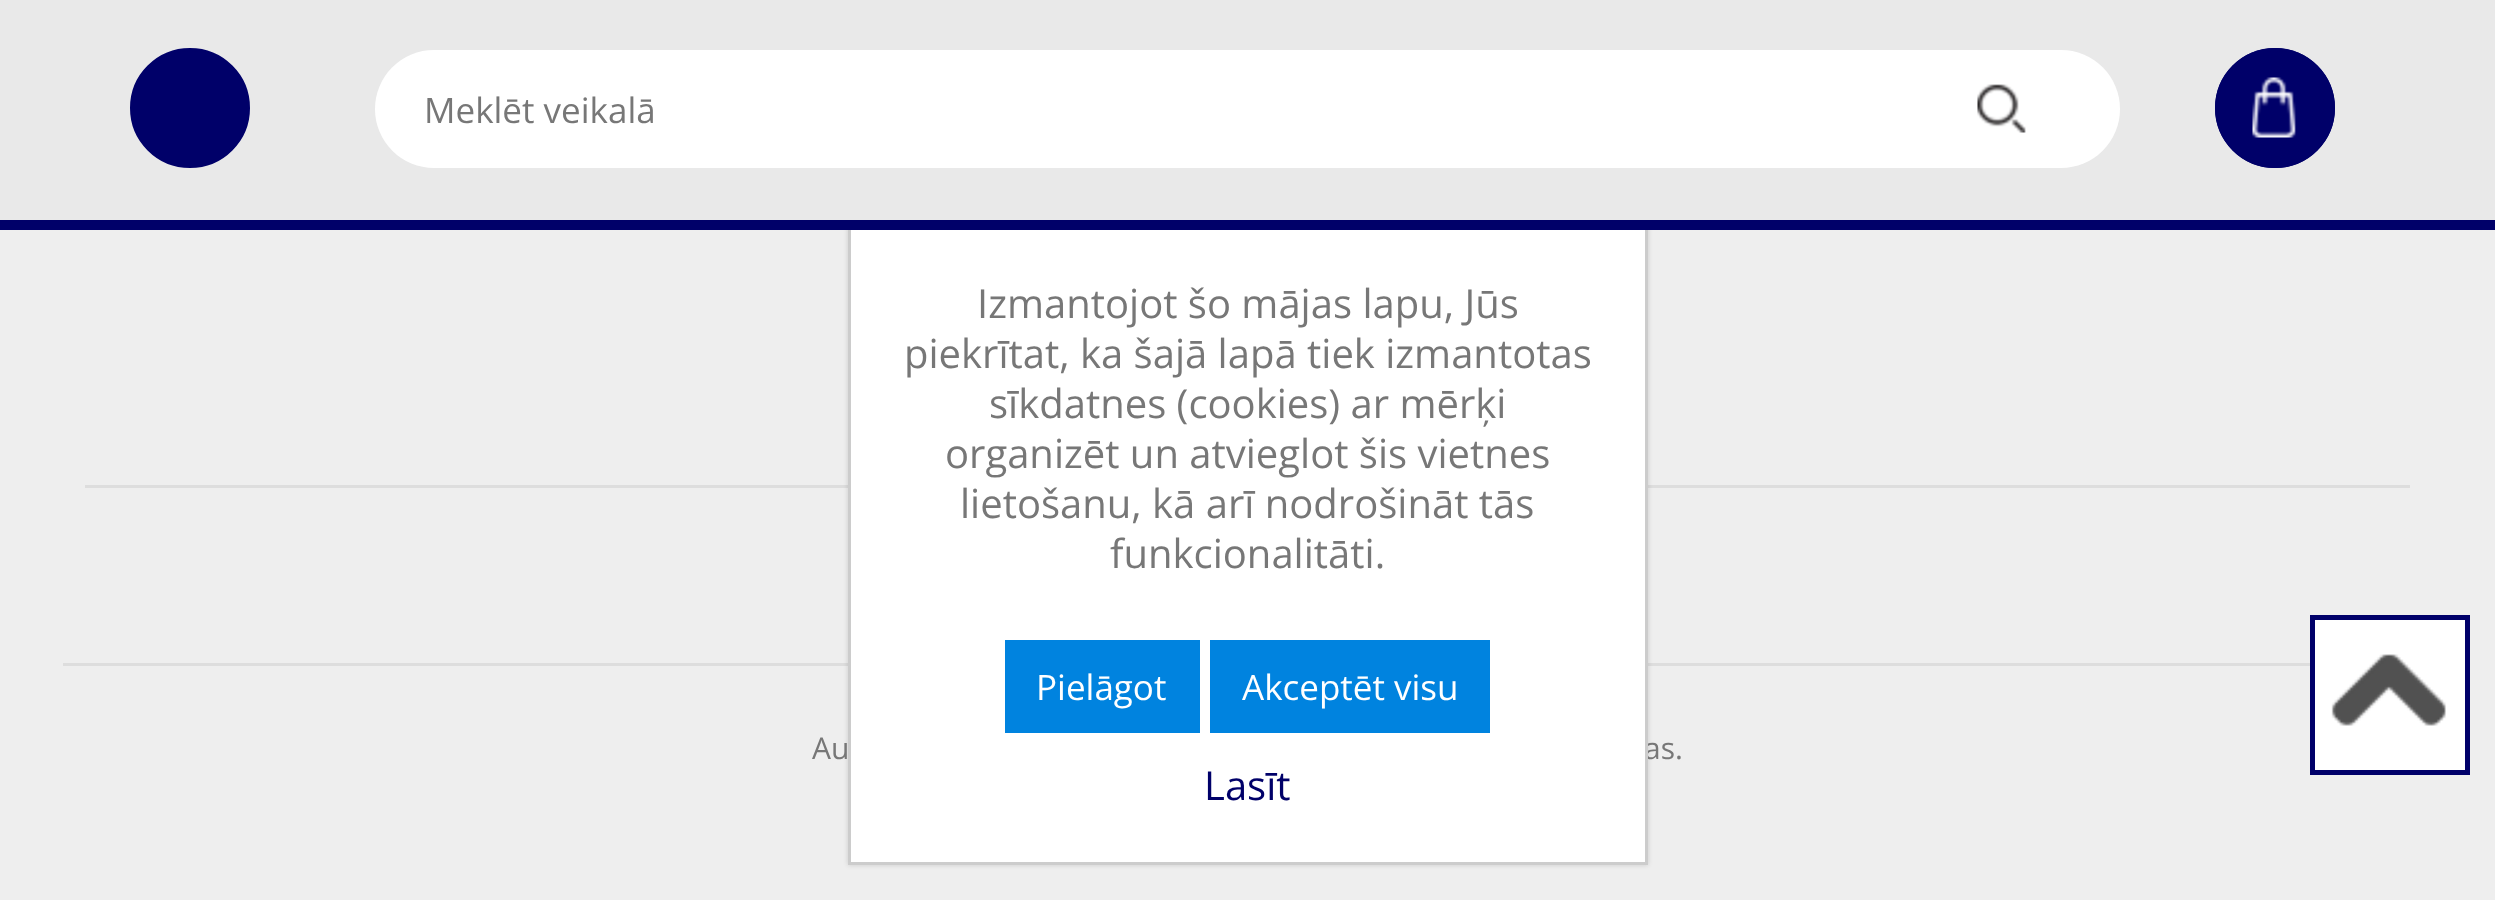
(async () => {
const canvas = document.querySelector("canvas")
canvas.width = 2495
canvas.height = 900
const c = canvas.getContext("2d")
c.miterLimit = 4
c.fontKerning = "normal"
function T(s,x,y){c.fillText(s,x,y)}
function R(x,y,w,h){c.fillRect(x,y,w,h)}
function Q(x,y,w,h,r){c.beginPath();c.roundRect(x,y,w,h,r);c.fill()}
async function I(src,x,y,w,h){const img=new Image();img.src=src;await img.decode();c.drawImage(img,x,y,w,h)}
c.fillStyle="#eee"
R(0,0,2495,900)
c.fillStyle="#ddd"
R(63,663,2247,3)
R(85,485,2325,3)
c.fillStyle="#00000026"
c.filter="blur(2.5px)"
c.beginPath()
c.rect(848,225,800,640)
c.fill()
c.filter="none"
c.fillStyle="#e9e9e9"
R(0,0,2495,220)
c.fillStyle="#fff"
R(851,230,794,632)
c.font="30px Open Sans"
c.fillStyle="#777"
T("as.",1644,759)
c.strokeStyle="#ccc"
c.lineWidth=3
c.strokeRect(849.5,226.5,797,637)
c.fillStyle="#000069"
R(0,220,2495,10)
c.beginPath()
c.arc(190,108,58.5,0,7)
c.fill()
c.strokeStyle="#000069"
c.stroke()
c.fillStyle="#fff"
Q(375,50,1745,118,59)
c.font="35px Open Sans"
c.fillStyle="#777"
T("Meklēt veikalā",424,123)
await I("1.png",1977,84,49,49)
c.fillStyle="#000069"
c.beginPath()
c.arc(2275,108,60,0,7)
c.fill()
await I("2.png",2252,77,44,61)
c.beginPath()
c.arc(2275,108,58.5,0,7)
c.stroke()
c.font="40px Open Sans"
c.fillStyle="#777"
T("Izmantojot šo mājas lapu, Jūs",977,318)
T("piekrītat, ka šajā lapā tiek izmantotas",904,368)
T("sīkdatnes (cookies) ar mērķi",989,418)
T("organizēt un atvieglot šis vietnes",945,468)
T("lietošanu, kā arī nodrošināt tās",960,518)
T("funkcionalitāti.",1110,568)
c.fillStyle="#0083df"
R(1005,640,195,93)
c.font="35px Open Sans"
c.fillStyle="#fff"
T("Pielāgot",1036,700)
c.fillStyle="#0083df"
R(1210,640,280,93)
c.fillStyle="#fff"
T("Akceptēt visu",1242,700)
c.font="40px Open Sans"
c.fillStyle="#000069"
T("Lasīt",1204,800)
c.font="30px Open Sans"
c.fillStyle="#777"
T("Au",812,759)
c.fillStyle="#fff"
R(2315,620,150,150)
await I("3.png",2331,654,115,72)
c.lineWidth=5
c.strokeRect(2312.5,617.5,155,155)
})()
